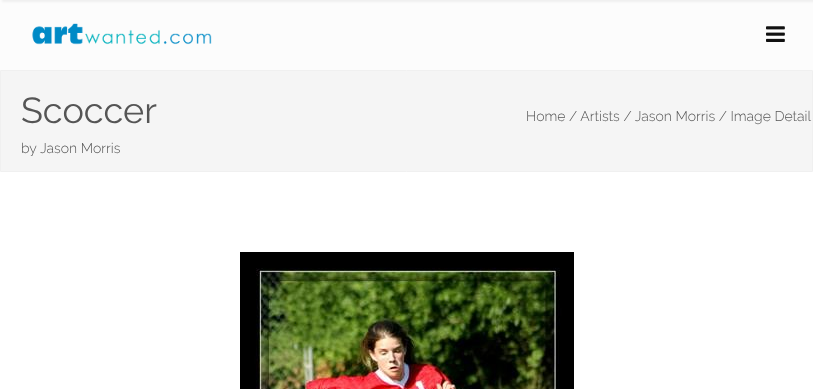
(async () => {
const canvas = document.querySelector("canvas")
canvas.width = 813
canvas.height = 389
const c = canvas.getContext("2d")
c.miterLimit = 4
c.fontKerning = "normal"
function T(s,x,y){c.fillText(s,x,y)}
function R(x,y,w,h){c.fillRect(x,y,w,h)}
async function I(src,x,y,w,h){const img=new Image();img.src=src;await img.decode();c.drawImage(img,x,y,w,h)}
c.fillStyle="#fff"
R(0,0,813,389)
c.fillStyle="#fcfcfc"
R(0,0,813,70)
await I("1.png",32,23,180,22)
await I("2.png",766,26,19,16)
c.fillStyle="#0000000d"
c.filter="blur(1px)"
c.beginPath()
c.rect(2,-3,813,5)
c.fill()
c.filter="none"
c.fillStyle="#f5f5f5"
c.beginPath()
c.rect(.5,70.5,812,101)
c.fill()
c.strokeStyle="#f0f0f0"
c.stroke()
c.font="36px Raleway"
c.fillStyle="#555"
T("Scoccer",21,123)
c.font="300 14px Raleway"
T("by",21,153)
T("Jason Morris",40,153)
T("Home / Artists / Jason Morris / Image Detail",526,121)
await I("3.png",240,252,334,137)
})()
